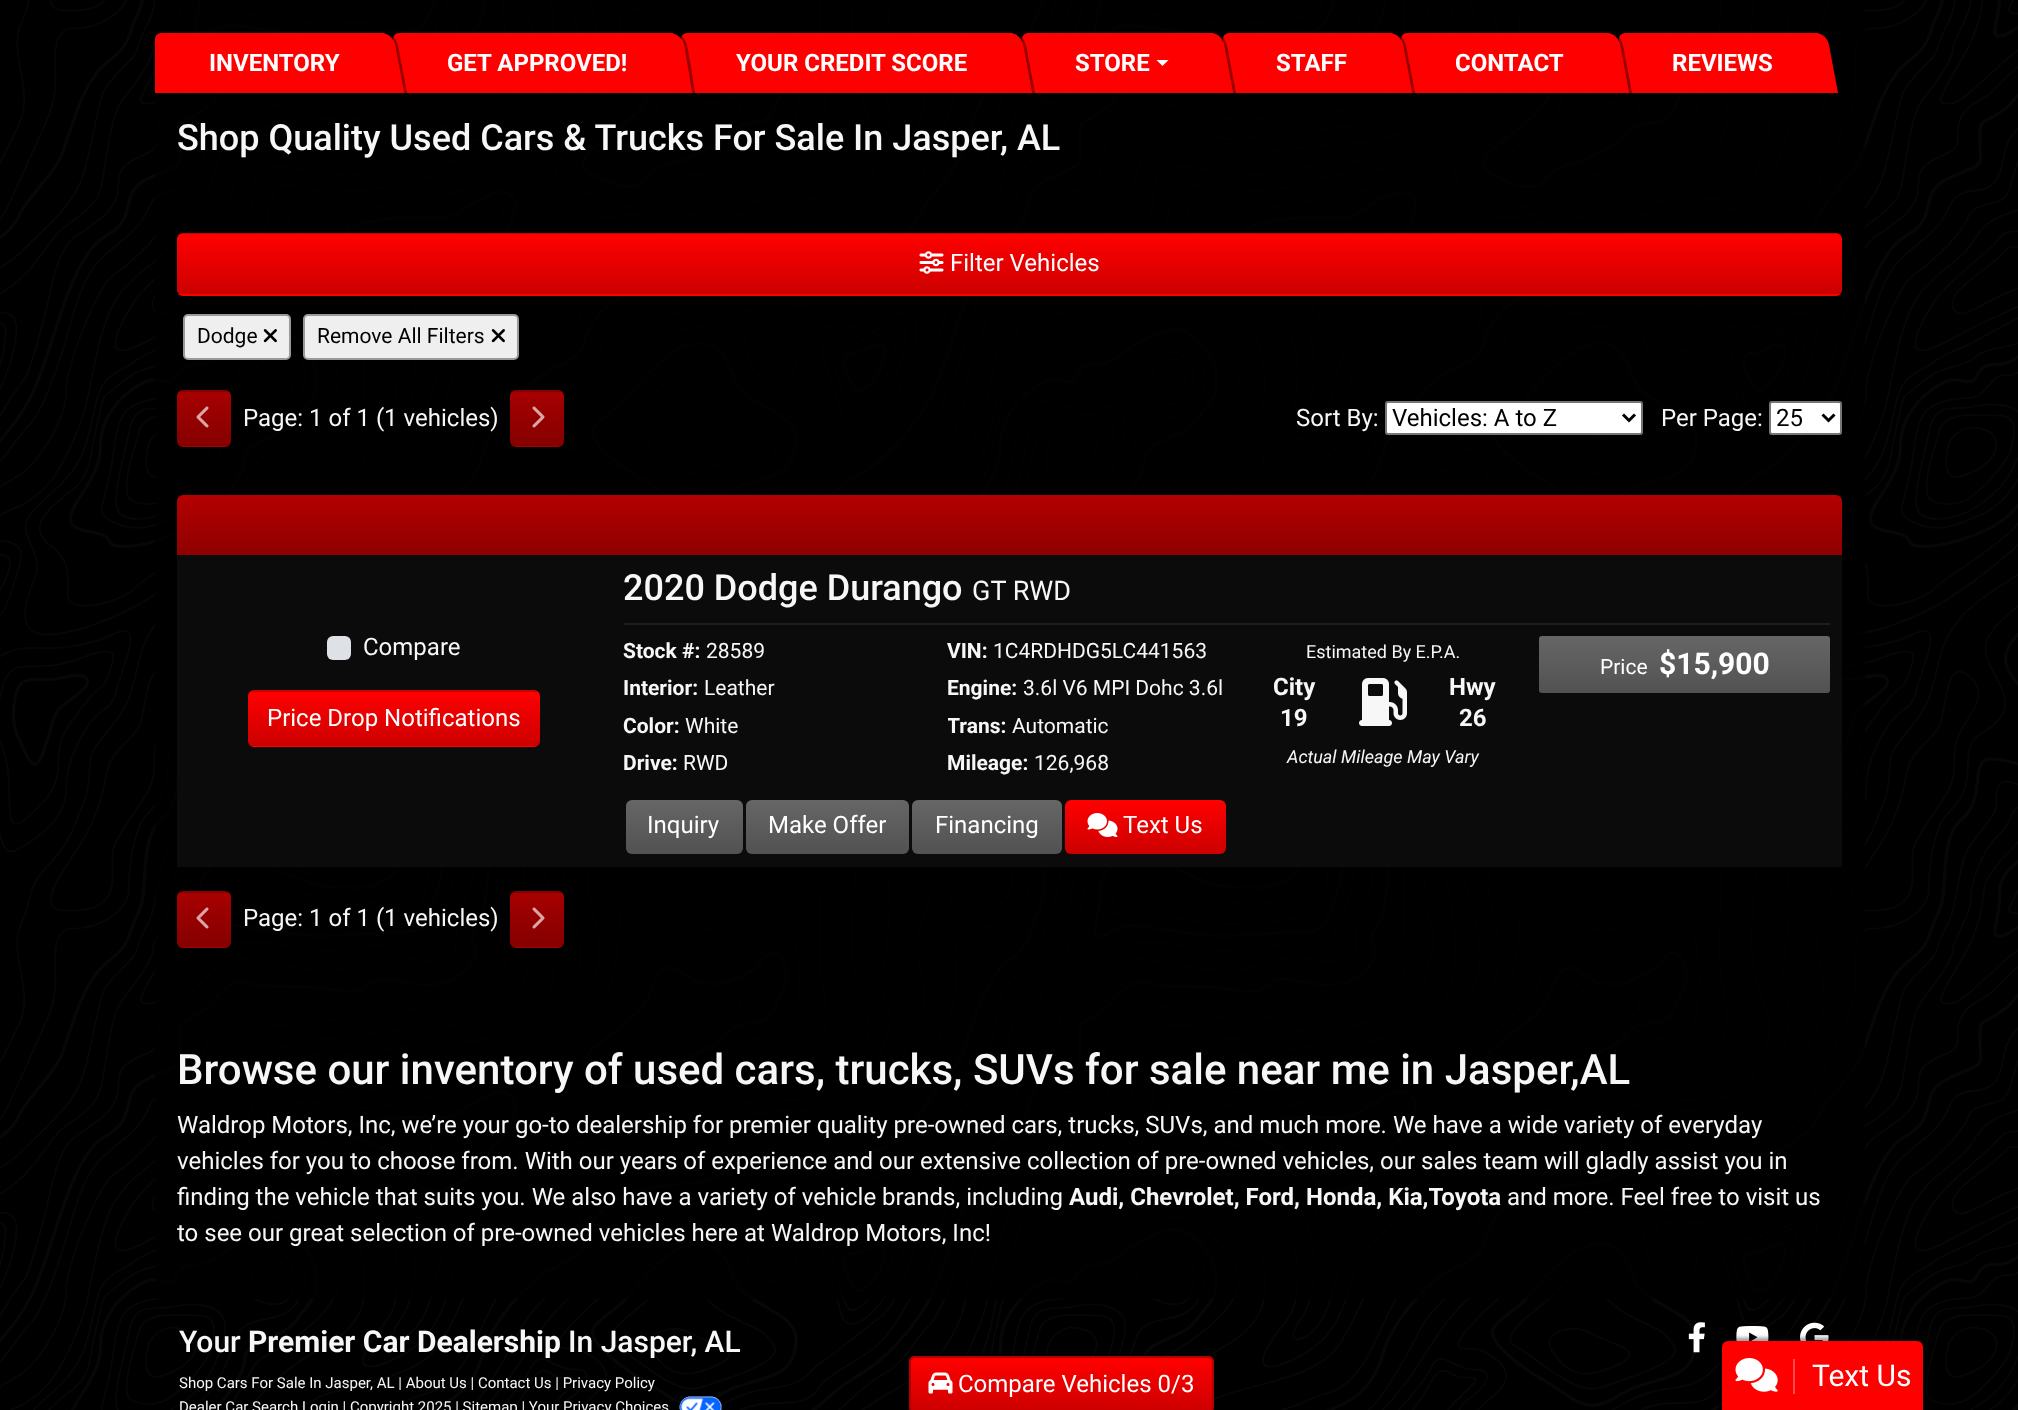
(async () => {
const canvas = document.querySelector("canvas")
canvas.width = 2018
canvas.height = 1410
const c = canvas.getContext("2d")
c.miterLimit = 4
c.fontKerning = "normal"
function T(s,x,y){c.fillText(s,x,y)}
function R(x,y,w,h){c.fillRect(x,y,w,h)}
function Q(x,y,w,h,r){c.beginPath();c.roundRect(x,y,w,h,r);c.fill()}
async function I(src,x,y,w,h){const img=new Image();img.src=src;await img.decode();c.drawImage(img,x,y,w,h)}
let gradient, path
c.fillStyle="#000"
R(0,0,2018,1410)
await I("1.png",0,0,2018,1410)
c.fillStyle="#000000b3"
R(155,0,1710,1299)
c.fillStyle="#f00"
c.beginPath()
c.roundRect(155,33,238,60,[6,12,0,0])
c.fill()
c.font="bold 24px Roboto"
c.fillStyle="#fff"
T("INVENTORY",209,71)
c.fillStyle="#f00"
c.beginPath()
c.roundRect(393,33,288,60,[6,12,0,0])
c.fill()
c.fillStyle="#00000066"
path = new Path2D("M404 93h3l-6-32c-3-15-2-28-20-28c7 0 13 5 14 12z")
c.fill(path)
c.fillStyle="#f00"
path = new Path2D("M369 33h12c7 0 13 5 14 12l9 48h-24z")
c.fill(path)
c.fillStyle="#fff"
T("GET APPROVED!",447,71)
c.fillStyle="#f00"
c.beginPath()
c.roundRect(681,33,341,60,[6,12,0,0])
c.fill()
c.fillStyle="#00000066"
path = new Path2D("M692 93h3l-5-32c-3-15-2-28-20-28c6 0 13 5 14 12z")
c.fill(path)
c.fillStyle="#f00"
path = new Path2D("M658 33h12c6 0 13 5 14 12l8 48h-24z")
c.fill(path)
c.fillStyle="#fff"
T("YOUR CREDIT SCORE",736,71)
c.fillStyle="#f00"
c.beginPath()
c.roundRect(1022,33,201,60,[6,12,0,0])
c.fill()
c.fillStyle="#00000066"
path = new Path2D("M1032 93h3l-6-32c-3-15-2-28-20-28c7 0 13 5 14 12z")
c.fill(path)
c.fillStyle="#f00"
path = new Path2D("M997 33h12c7 0 13 5 14 12l9 48h-24z")
c.fill(path)
c.fillStyle="#fff"
T("STORE",1075,71)
path = new Path2D("M1156.5 60h12l-6 6z")
c.fill(path)
c.fillStyle="#f00"
c.beginPath()
c.roundRect(1223,33,178,60,[6,12,0,0])
c.fill()
c.fillStyle="#00000066"
path = new Path2D("M1233 93h3l-6-32c-3-15-2-28-20-28c7 0 13 5 14 12z")
c.fill(path)
c.fillStyle="#f00"
path = new Path2D("M1198 33h12c7 0 13 5 14 12l9 48h-24z")
c.fill(path)
c.fillStyle="#fff"
T("STAFF",1276,71)
c.fillStyle="#f00"
c.beginPath()
c.roundRect(1401,33,218,60,[6,12,0,0])
c.fill()
c.fillStyle="#00000066"
path = new Path2D("M1412 93h3l-6-32c-3-15-2-28-20-28c7 0 13 5 14 12z")
c.fill(path)
c.fillStyle="#f00"
path = new Path2D("M1377 33h12c7 0 13 5 14 12l9 48h-24z")
c.fill(path)
c.fillStyle="#fff"
T("CONTACT",1455,71)
c.fillStyle="#f00"
c.beginPath()
c.roundRect(1619,33,208,60,[6,12,0,0])
c.fill()
c.fillStyle="#00000066"
path = new Path2D("M1629 93h3l-6-32c-3-15-2-28-20-28c7 0 13 5 14 12z")
c.fill(path)
c.fillStyle="#f00"
path = new Path2D("M1594 33h12c7 0 13 5 14 12l9 48h-24z")
c.fill(path)
c.fillStyle="#fff"
T("REVIEWS",1672,71)
c.fillStyle="#00000066"
path = new Path2D("M1838 93h3l-6-32c-3-15-2-28-20-28c7 0 13 5 14 12z")
c.fill(path)
c.fillStyle="#f00"
path = new Path2D("M1803 33h12c7 0 13 5 14 12l9 48h-24z")
c.fill(path)
c.font="500 36px Roboto"
c.fillStyle="#f7f7f7"
T("Shop Quality Used Cars & Trucks For Sale In Jasper, AL",177,150)
c.fillStyle="#f00"
Q(177,233,1665,63,6)
c.save()
c.beginPath()
c.roundRect(177,233,1665,63,6)
c.clip()
gradient = c.createLinearGradient(1010,174,1010,234)
gradient.addColorStop(0,"#00000000")
gradient.addColorStop(1,"#00000033")
c.fillStyle = gradient
R(177,233,1665,1)
gradient = c.createLinearGradient(1010,234,1010,294)
gradient.addColorStop(0,"#00000000")
gradient.addColorStop(1,"#00000033")
c.fillStyle = gradient
R(177,240,1665,54)
c.restore()
await I("2.png",919,251,25,23)
c.font="24px Roboto"
c.fillStyle="#fff"
T("Filter Vehicles",950,271)
c.fillStyle="#efefef"
c.beginPath()
c.roundRect(184,315,106,44,4)
c.fill()
c.strokeStyle="#999"
c.lineWidth=2
c.stroke()
c.font="21px Roboto"
c.fillStyle="#000"
T("Dodge",197,343)
await I("3.png",263,329,14,14)
c.fillStyle="#efefef"
c.beginPath()
c.roundRect(304,315,214,44,4)
c.fill()
c.stroke()
c.fillStyle="#000"
T("Remove All Filters",317,343)
await I("3.png",491,329,14,14)
c.fillStyle="#a60000"
Q(177,390,54,57,6)
c.save()
c.beginPath()
c.roundRect(177,390,54,57,6)
c.clip()
gradient = c.createLinearGradient(204,338,204,392)
gradient.addColorStop(0,"#00000000")
gradient.addColorStop(1,"#00000033")
c.fillStyle = gradient
R(177,390,54,2)
gradient = c.createLinearGradient(204,392,204,446)
gradient.addColorStop(0,"#00000000")
gradient.addColorStop(1,"#00000033")
c.fillStyle = gradient
R(177,398,54,48)
c.restore()
await I("4.png",196,406,13,22)
c.font="24px Roboto"
c.fillStyle="#f7f7f7"
T("Page: 1 of 1 (1 vehicles)",243,426)
c.fillStyle="#a60000"
Q(510,390,54,57,6)
c.save()
c.beginPath()
c.roundRect(510,390,54,57,6)
c.clip()
gradient = c.createLinearGradient(537,338,537,392)
gradient.addColorStop(0,"#00000000")
gradient.addColorStop(1,"#00000033")
c.fillStyle = gradient
R(510,390,54,2)
gradient = c.createLinearGradient(537,392,537,446)
gradient.addColorStop(0,"#00000000")
gradient.addColorStop(1,"#00000033")
c.fillStyle = gradient
R(510,398,54,48)
c.restore()
await I("5.png",532,406,13,22)
c.fillStyle="#f7f7f7"
T("Sort By:",1296,426)
c.fillStyle="#fff"
c.beginPath()
c.roundRect(1386,402,256,32,2)
c.fill()
c.strokeStyle="#767676"
c.stroke()
path = new Path2D("M1623 414.5l6 6l6-6")
c.strokeStyle="#000"
c.lineWidth=3
c.stroke(path)
c.fillStyle="#000"
T("Vehicles: A to Z",1392,426)
c.fillStyle="#f7f7f7"
T("Per Page:",1661,426)
c.fillStyle="#fff"
c.beginPath()
c.roundRect(1770,402,71,32,2)
c.fill()
c.strokeStyle="#767676"
c.lineWidth=2
c.stroke()
path = new Path2D("M1822.5 414.5l6 6l6-6")
c.strokeStyle="#000"
c.lineWidth=3
c.stroke(path)
c.fillStyle="#000"
T("25",1776,426)
c.fillStyle="#b30000"
c.beginPath()
c.roundRect(177,495,1665,60,[6,6,0,0])
c.fill()
gradient = c.createLinearGradient(1010,495,1010,555)
gradient.addColorStop(0,"#00000000")
gradient.addColorStop(1,"#00000033")
c.fillStyle = gradient
R(177,501,1665,54)
c.fillStyle="#0b0b0b"
R(177,555,1665,312)
c.fillStyle="#dee2e6"
Q(327,636,24,24,6)
c.fillStyle="#f7f7f7"
T("Compare",363,655)
c.fillStyle="#f00"
Q(248,690,292,57,6)
c.save()
c.beginPath()
c.roundRect(248,690,292,57,6)
c.clip()
gradient = c.createLinearGradient(394,638,394,692)
gradient.addColorStop(0,"#00000000")
gradient.addColorStop(1,"#00000033")
c.fillStyle = gradient
R(248,690,292,2)
gradient = c.createLinearGradient(394,692,394,746)
gradient.addColorStop(0,"#00000000")
gradient.addColorStop(1,"#00000033")
c.fillStyle = gradient
R(248,698,292,48)
c.restore()
c.fillStyle="#fff"
T("Price Drop Notifications",267,726)
c.fillStyle="#1e1e1e"
R(624,623,1206,2)
c.font="500 36px Roboto"
c.fillStyle="#f7f7f7"
T("2020 Dodge Durango",623,600)
c.font="27px Roboto"
T("GT RWD",972,600)
c.font="bold 21px Roboto"
T("Stock #:",623,658)
c.font="21px Roboto"
T("28589",706,658)
c.font="bold 21px Roboto"
T("Interior:",623,695)
c.font="21px Roboto"
T("Leather",704,695)
c.font="bold 21px Roboto"
T("Color:",623,733)
c.font="21px Roboto"
T("White",685,733)
c.font="bold 21px Roboto"
T("Drive:",623,770)
c.font="21px Roboto"
T("RWD",683,770)
c.font="bold 21px Roboto"
T("VIN:",947,658)
c.font="21px Roboto"
T("1C4RDHDG5LC441563",993,658)
c.font="bold 21px Roboto"
T("Engine:",947,695)
c.font="21px Roboto"
T("3.6l V6 MPI Dohc 3.6l",1023,695)
c.save()
c.beginPath()
c.rect(948,711,279,32)
c.clip()
c.font="bold 21px Roboto"
T("Trans:",947,733)
c.restore()
T("Automatic",1012,733)
c.font="bold 21px Roboto"
T("Mileage:",947,770)
c.font="21px Roboto"
T("126,968",1034,770)
c.fillStyle="#666"
Q(626,800,117,54,6)
gradient = c.createLinearGradient(684,800,684,854)
gradient.addColorStop(0,"#00000000")
gradient.addColorStop(1,"#00000033")
c.fillStyle = gradient
Q(626,800,117,54,6)
c.font="24px Roboto"
c.fillStyle="#fff"
T("Inquiry",647,833)
c.fillStyle="#666"
Q(746,800,163,54,6)
gradient = c.createLinearGradient(827,800,827,854)
gradient.addColorStop(0,"#00000000")
gradient.addColorStop(1,"#00000033")
c.fillStyle = gradient
Q(746,800,163,54,6)
c.fillStyle="#fff"
T("Make Offer",768,833)
c.fillStyle="#666"
Q(912,800,150,54,6)
gradient = c.createLinearGradient(987,800,987,854)
gradient.addColorStop(0,"#00000000")
gradient.addColorStop(1,"#00000033")
c.fillStyle = gradient
Q(912,800,150,54,6)
c.fillStyle="#fff"
T("Financing",935,833)
c.fillStyle="#f00"
Q(1065,800,161,54,6)
gradient = c.createLinearGradient(1145,800,1145,854)
gradient.addColorStop(0,"#00000000")
gradient.addColorStop(1,"#00000033")
c.fillStyle = gradient
Q(1065,800,161,54,6)
await I("6.png",1087,813,31,24)
c.fillStyle="#fff"
T("Text Us",1123,833)
c.font="18px Roboto"
c.fillStyle="#f7f7f7"
T("Estimated By E.P.A.",1306,658)
c.font="bold 24px Roboto"
T("City",1273,695)
T("19",1280,726)
await I("7.png",1359,678,48,48)
T("Hwy",1449,695)
T("26",1459,726)
c.font="italic 18px Roboto"
T("Actual Mileage May Vary",1287,763)
c.fillStyle="#666"
Q(1539,636,291,57,3)
gradient = c.createLinearGradient(1685,636,1685,693)
gradient.addColorStop(0,"#00000000")
gradient.addColorStop(1,"#00000033")
c.fillStyle = gradient
Q(1539,636,291,57,3)
c.font="21px Roboto"
c.fillStyle="#fff"
T("Price",1600,674)
c.font="bold 30px Roboto"
T("$15,900",1659,674)
c.fillStyle="#a60000"
Q(177,891,54,57,6)
c.save()
c.beginPath()
c.roundRect(177,891,54,57,6)
c.clip()
gradient = c.createLinearGradient(204,839,204,893)
gradient.addColorStop(0,"#00000000")
gradient.addColorStop(1,"#00000033")
c.fillStyle = gradient
R(177,891,54,2)
gradient = c.createLinearGradient(204,893,204,947)
gradient.addColorStop(0,"#00000000")
gradient.addColorStop(1,"#00000033")
c.fillStyle = gradient
R(177,899,54,48)
c.restore()
await I("4.png",196,907,13,22)
c.font="24px Roboto"
c.fillStyle="#f7f7f7"
T("Page: 1 of 1 (1 vehicles)",243,926)
c.fillStyle="#a60000"
Q(510,891,54,57,6)
c.save()
c.beginPath()
c.roundRect(510,891,54,57,6)
c.clip()
gradient = c.createLinearGradient(537,839,537,893)
gradient.addColorStop(0,"#00000000")
gradient.addColorStop(1,"#00000033")
c.fillStyle = gradient
R(510,891,54,2)
gradient = c.createLinearGradient(537,893,537,947)
gradient.addColorStop(0,"#00000000")
gradient.addColorStop(1,"#00000033")
c.fillStyle = gradient
R(510,899,54,48)
c.restore()
await I("5.png",532,907,13,22)
c.fillStyle="#f00"
Q(909,1356,305,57,6)
gradient = c.createLinearGradient(1061,1358,1061,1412)
gradient.addColorStop(0,"#00000000")
gradient.addColorStop(1,"#00000033")
c.fillStyle = gradient
R(909,1364,305,46)
c.beginPath()
c.roundRect(910,1357,303,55,5)
c.strokeStyle="#b30000"
c.lineWidth=2
c.stroke()
await I("8.png",928,1372,25,22)
c.fillStyle="#fff"
T("Compare Vehicles 0/3",958,1392)
c.font="500 42px Roboto"
c.fillStyle="#f7f7f7"
T("Browse our inventory of used cars, trucks, SUVs for sale near me in Jasper,AL",177,1084)
c.font="24px Roboto"
T("Waldrop Motors, Inc, we’re your go-to dealership for premier quality pre-owned cars, trucks, SUVs, and much more. We have a wide variety of everyday",177,1133)
T("vehicles for you to choose from. With our years of experience and our extensive collection of pre-owned vehicles, our sales team will gladly assist you in",177,1169)
T("finding the vehicle that suits you. We also have a variety of vehicle brands, including",177,1205)
c.font="bold 24px Roboto"
T("Audi, Chevrolet, Ford, Honda, Kia,Toyota",1069,1205)
c.font="24px Roboto"
T("and more. Feel free to visit us",1507,1205)
T("to see our great selection of pre-owned vehicles here at Waldrop Motors, Inc!",177,1241)
c.font="500 30px Roboto"
T("Your",179,1352)
c.font="bold 30px Roboto"
T("Premier Car Dealership",248,1352)
c.font="500 30px Roboto"
T("In Jasper, AL",568,1352)
c.font="15px Roboto"
T("Shop Cars For Sale In Jasper, AL | About Us | Contact Us | Privacy Policy",179,1388)
await I("9.png",1688,1322,17,31)
await I("10.png",1736,1326,33,15)
await I("11.png",1800,1322,29,19)
T("Dealer Car Search Login | Copyright 2025 | Sitemap | Your Privacy Choices",179,1412)
await I("12.png",679,1396,43,14)
c.fillStyle="#00000040"
c.filter="blur(1.5px)"
c.beginPath()
c.roundRect(1721,1338,204,72,8)
c.fill()
c.filter="none"
c.fillStyle="#00000026"
c.filter="blur(2px)"
c.beginPath()
c.roundRect(1719,1337,207,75,9)
c.fill()
c.filter="none"
c.fillStyle="#f00"
c.beginPath()
c.roundRect(1722,1341,201,69,[6,6,0,0])
c.fill()
c.fillStyle="#ff4d4d"
R(1793,1359,2,35)
await I("13.png",1735,1358,43,34)
c.font="30px Roboto"
c.fillStyle="#fff"
T("Text Us",1812,1386)
})()
